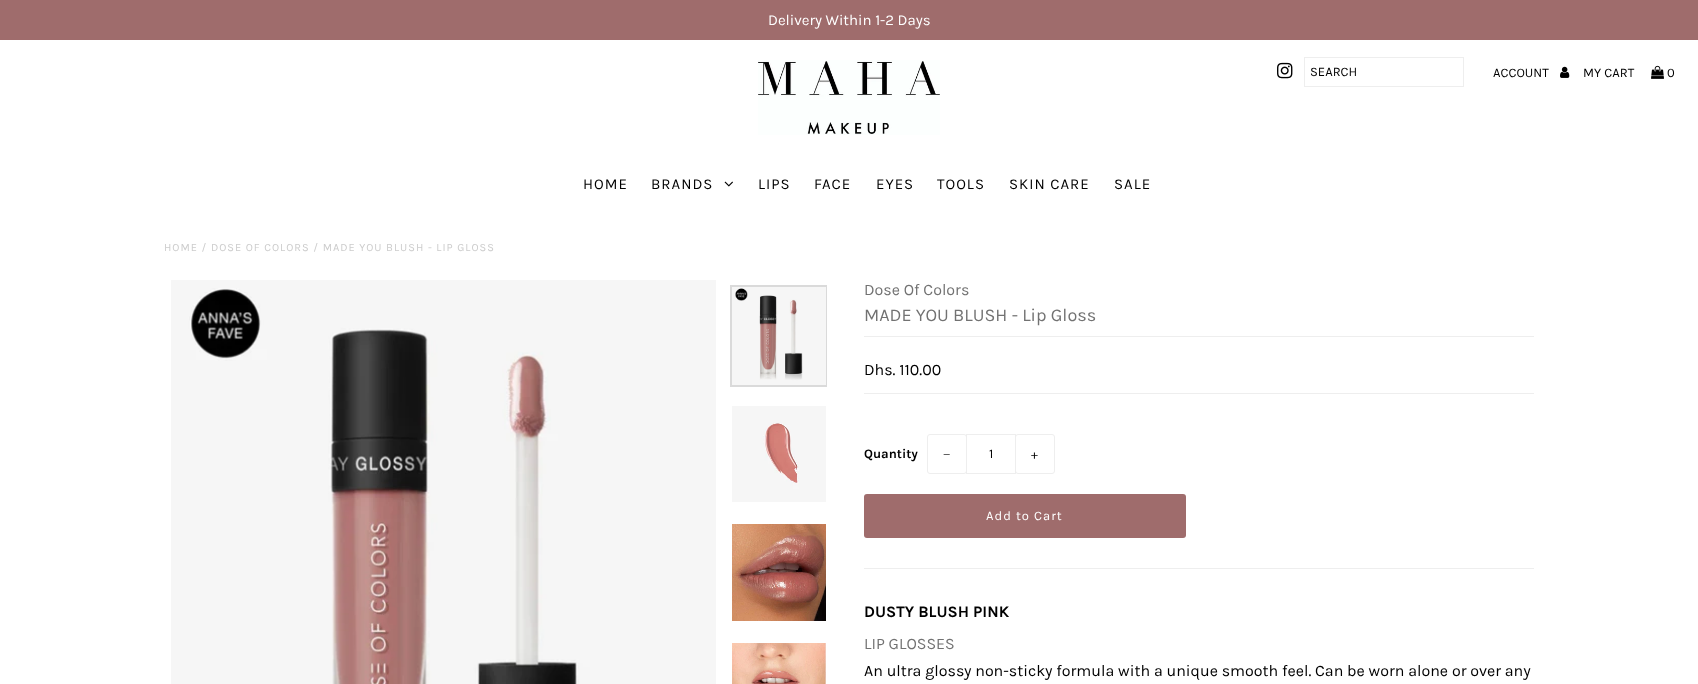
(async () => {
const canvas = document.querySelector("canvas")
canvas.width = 1698
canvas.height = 684
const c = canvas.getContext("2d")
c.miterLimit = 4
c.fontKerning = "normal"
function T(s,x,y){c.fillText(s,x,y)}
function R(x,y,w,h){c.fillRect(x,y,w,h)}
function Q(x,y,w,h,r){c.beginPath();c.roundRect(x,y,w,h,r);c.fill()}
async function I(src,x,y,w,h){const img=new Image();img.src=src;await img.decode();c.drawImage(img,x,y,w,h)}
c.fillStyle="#fff"
R(0,0,1698,684)
c.fillStyle="#9f6c6c"
R(0,0,1698,40)
c.font="15px Karla"
c.fillStyle="#fff"
T("Delivery Within 1-2 Days",768,25)
await I("1.png",758,60,182,75)
await I("2.png",1277,62,16,17)
c.strokeStyle="#eee"
c.strokeRect(1304.5,57.5,159,29)
c.font="13px Karla"
c.fillStyle="#000"
T("SEARCH",1310,76)
T("ACCOUNT",1493,77)
await I("3.png",1560,66,10,12)
T("MY CART",1583,77)
await I("4.png",1651,65,13,14)
T("0",1667,77)
c.letterSpacing="1px"
c.font="15px Karla"
T("HOME",583,189)
T("BRANDS",651,189)
await I("5.png",724,181,9,6)
T("LIPS",758,189)
T("FACE",814,189)
T("EYES",876,189)
T("TOOLS",937,189)
T("SKIN CARE",1009,189)
T("SALE",1114,189)
c.font="11px Karla"
c.fillStyle="#ccc"
T("HOME / DOSE OF COLORS / MADE YOU BLUSH - LIP GLOSS",164,251)
await I("6.png",171,280,545,404)
c.save()
c.beginPath()
c.rect(730,285,97,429)
c.clip()
c.strokeStyle="#dadada"
c.lineWidth=2
c.strokeRect(731,286,96,100)
c.restore()
await I("7.png",732,287,94,98)
await I("8.png",732,406,94,96)
await I("9.png",732,524,94,97)
await I("10.png",732,643,94,41)
c.letterSpacing="0px"
c.font="16px Karla"
c.fillStyle="#727272"
T("Dose Of Colors",864,295)
c.font="18px Karla"
T("MADE YOU BLUSH - Lip Gloss",864,321)
c.fillStyle="#eee"
R(864,336,670,1)
R(864,568,670,1)
R(864,393,670,1)
c.font="16px Karla"
c.fillStyle="#000"
T("Dhs. 110.00",864,375)
c.font="bold 13px Karla"
T("Quantity",864,458)
c.beginPath()
c.roundRect(927.5,434.5,39,39,2.5)
c.stroke()
c.letterSpacing="1px"
c.font="13px Liberation Serif"
T("−",943,459)
c.strokeRect(966.5,434.5,49,39)
c.letterSpacing="0px"
c.font="13px Karla"
T("1",989,458)
c.beginPath()
c.roundRect(1015.5,434.5,39,39,2.5)
c.stroke()
c.letterSpacing="1px"
T("+",1031,459)
c.fillStyle="#9f6c6c"
Q(864,494,322,44,3)
c.fillStyle="#fff"
T("Add to Cart",986,520)
c.letterSpacing="0px"
c.font="bold 16px Karla"
c.fillStyle="#000"
T("DUSTY BLUSH PINK",864,617)
c.font="16px Karla"
c.fillStyle="#727272"
T("LIP GLOSSES",864,649)
c.fillStyle="#000"
T("An ultra glossy non-sticky formula with a unique smooth feel. Can be worn alone or over any",864,676)
})()
